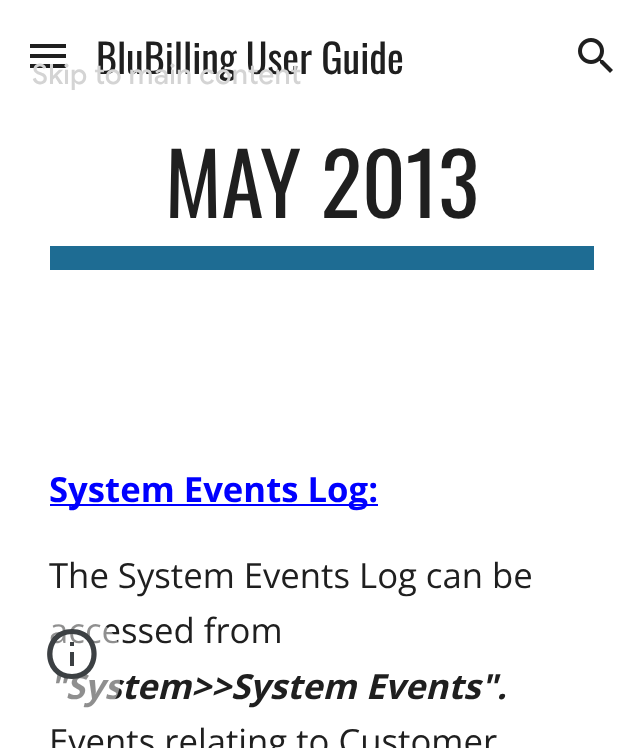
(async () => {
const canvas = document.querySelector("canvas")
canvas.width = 644
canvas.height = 748
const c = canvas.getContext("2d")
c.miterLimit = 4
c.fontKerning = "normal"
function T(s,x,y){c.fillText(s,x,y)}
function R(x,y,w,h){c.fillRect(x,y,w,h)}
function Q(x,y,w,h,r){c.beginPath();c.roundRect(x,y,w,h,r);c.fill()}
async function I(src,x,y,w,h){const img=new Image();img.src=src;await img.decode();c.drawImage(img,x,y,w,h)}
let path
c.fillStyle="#fff"
R(0,0,644,748)
c.fillStyle="#1f1f1f"
R(30,44,36,4)
R(30,54,36,4)
R(30,64,36,4)
c.font="40px Oswald"
T("BluBilling User Guide",96,74)
await I("1.png",578,38,35,35)
c.font="85.5px Oswald"
T("MAY 2013",165,218)
c.fillStyle="#1e6c93"
R(50,246,544,24)
c.fillStyle="#00f"
R(50,504,328,2)
c.font="bold 34.7px Open Sans"
T("System Events Log:",49,502)
c.font="34.7px Open Sans"
c.fillStyle="#1f1f1f"
T("The System Events Log can be",49,588)
T("accessed from",49,643)
c.font="italic bold 34.7px Open Sans"
T("\"System>>System Events\".",49,699)
c.font="34.7px Open Sans"
T("Events relating to Customer",49,754)
c.fillStyle="#ffffff80"
Q(24,620,96,96,34)
c.fillStyle="#3c4043"
path = new Path2D("M70 666h4v-14h-4zm2-37c-33 0-33 50 0 50c33 0 33-50 0-50zm0 45c-26 0-26-40 0-40c26 0 26 40 0 40zm-2-28h4v-4h-4z")
c.fill(path)
c.letterSpacing="0.25px"
c.font="500 28px Google Sans"
c.fillStyle="#d4d4d4"
T("Skip to main content",32,84)
})()
